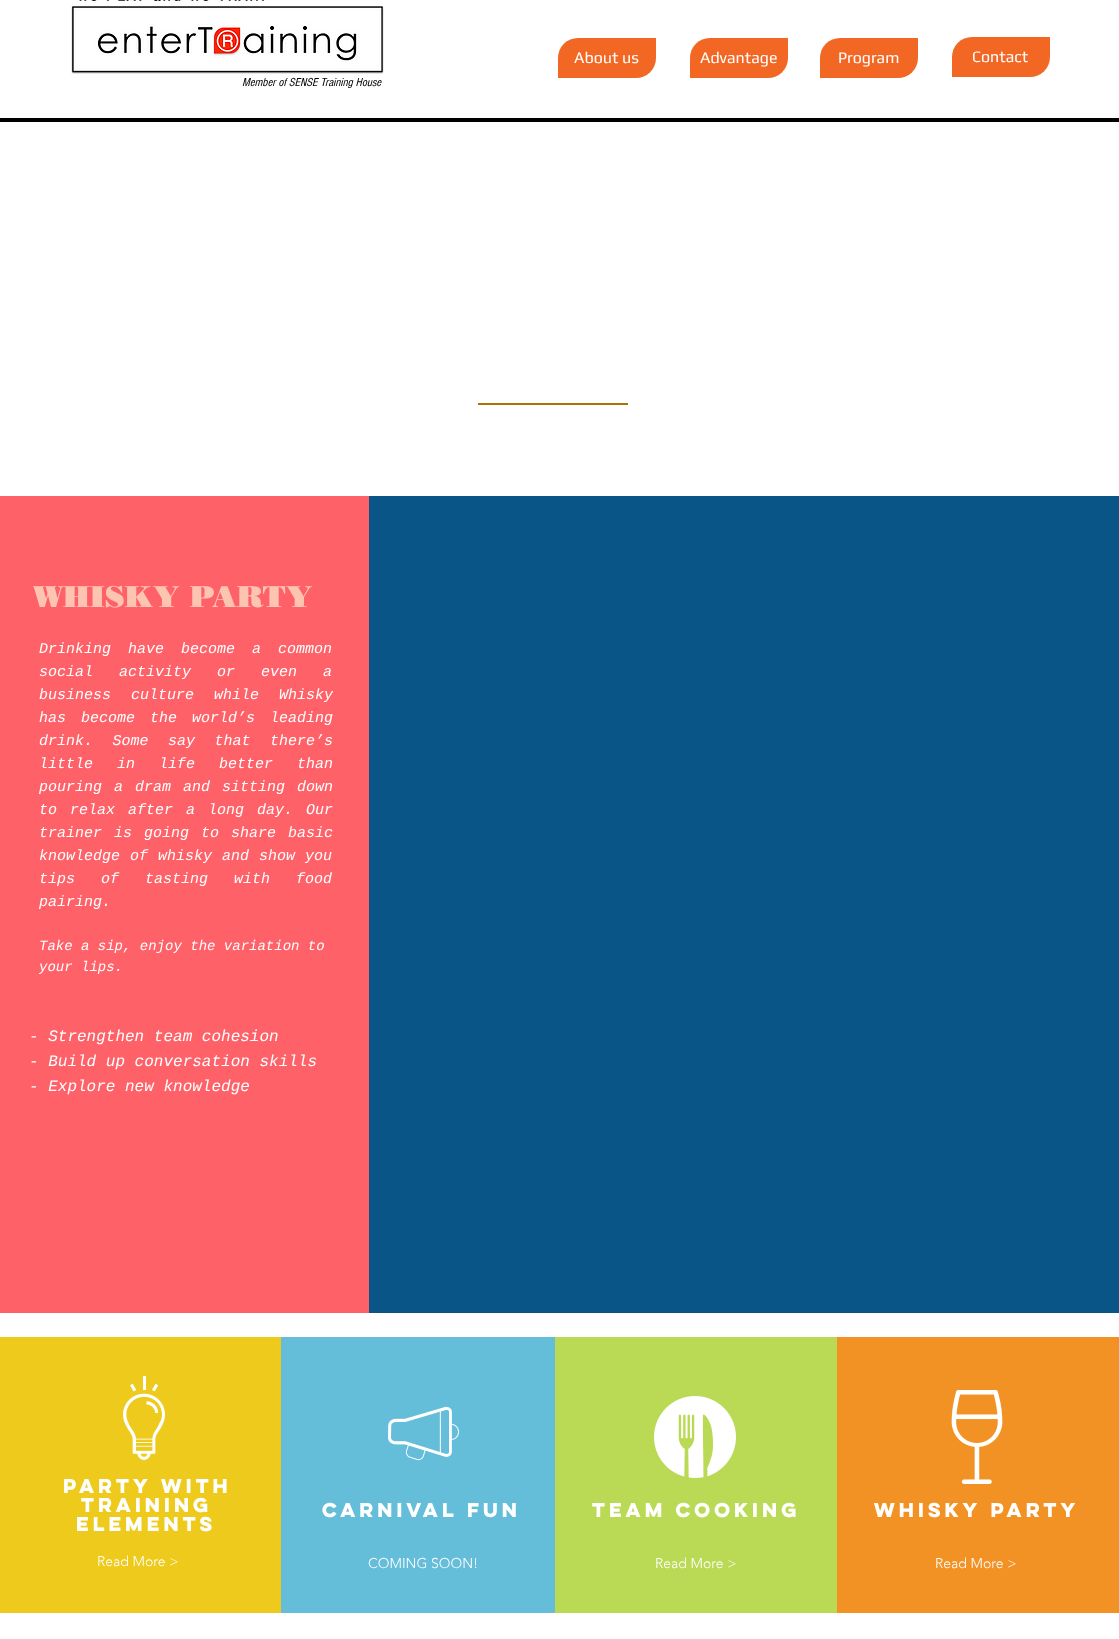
(async () => {
const canvas = document.querySelector("canvas")
canvas.width = 1119
canvas.height = 1639
const c = canvas.getContext("2d")
c.miterLimit = 4
c.fontKerning = "normal"
function T(s,x,y){c.fillText(s,x,y)}
function R(x,y,w,h){c.fillRect(x,y,w,h)}
async function I(src,x,y,w,h){const img=new Image();img.src=src;await img.decode();c.drawImage(img,x,y,w,h)}
c.fillStyle="#fff"
R(0,0,1119,1639)
await I("1.png",71,0,313,74)
c.fillStyle="#f36724"
c.beginPath()
c.roundRect(558,38,98,40,[20,0,20,0])
c.fill()
c.font="16px Play"
c.fillStyle="#fff"
T("About us",574,63)
c.fillStyle="#f36724"
c.beginPath()
c.roundRect(690,38,98,40,[20,0,20,0])
c.fill()
c.fillStyle="#fff"
T("Advantage",700,63)
c.fillStyle="#f36724"
c.beginPath()
c.roundRect(820,38,98,40,[20,0,20,0])
c.fill()
c.fillStyle="#fff"
T("Program",838,63)
c.fillStyle="#f36724"
c.beginPath()
c.roundRect(952,37,98,40,[20,0,20,0])
c.fill()
c.fillStyle="#fff"
T("Contact",972,62)
c.font="italic 12px 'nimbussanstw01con'"
c.fillStyle="#000"
T("Member of SENSE Training House",242,86)
R(0,118,1119,4)
c.fillStyle="#aa7304"
R(478,403,150,2)
c.fillStyle="#ff6168"
R(0,496,369,817)
c.font="900 30px 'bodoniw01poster'"
c.fillStyle="#fec4b2"
T("WHISKY PARTY",33,607)
c.wordSpacing="8px"
c.font="italic 15px Liberation Mono"
c.fillStyle="#fff"
T("Drinking have become a common",39,653)
c.wordSpacing="17px"
T("social activity or even a",39,676)
c.wordSpacing="11px"
T("business culture while Whisky",39,699)
c.wordSpacing="6px"
T("has become the world’s leading",39,722)
c.wordSpacing="10.5px"
T("drink. Some say that there’s",39,745)
c.wordSpacing="15px"
T("little in life better than",39,768)
c.wordSpacing="3px"
T("pouring a dram and sitting down",39,791)
c.wordSpacing="4px"
T("to relax after a long day. Our",39,814)
c.wordSpacing="3px"
T("trainer is going to share basic",39,837)
c.wordSpacing="1px"
T("knowledge of whisky and show you",39,860)
c.wordSpacing="17px"
T("tips of tasting with food",39,883)
c.wordSpacing="0px"
T("pairing.",39,906)
c.font="italic 14px Liberation Mono"
T("Take a sip, enjoy the variation to",39,950)
T("your lips.",39,971)
c.font="italic 16px Liberation Mono"
T("- Strengthen team cohesion",29,1041)
T("- Build up conversation skills",29,1066)
T("- Explore new knowledge",29,1091)
c.fillStyle="#0a5587"
R(369,496,750,817)
c.fillStyle="#edca1c"
R(0,1337,281,276)
await I("2.png",123,1376,42,84)
c.font="bold 18px 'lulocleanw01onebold'"
c.fillStyle="#fff"
T("Party with",63,1493)
T("Training",81,1512)
T("Elements",76,1531)
c.font="300 14px 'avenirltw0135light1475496'"
T("Read More >",97,1566)
c.fillStyle="#64bdd9"
R(281,1337,274,276)
await I("3.png",388,1406,71,55)
c.font="bold 18px 'lulocleanw01onebold'"
c.fillStyle="#fff"
T("Carnival Fun",322,1517)
c.font="300 14px 'avenirltw0135light1475496'"
T("COMING SOON!",368,1568)
c.fillStyle="#bada55"
R(555,1337,282,276)
await I("4.png",654,1396,82,82)
c.font="bold 18px 'lulocleanw01onebold'"
c.fillStyle="#fff"
T("Team cooking",592,1517)
c.font="300 14px 'avenirltw0135light1475496'"
T("Read More >",655,1568)
c.fillStyle="#f39224"
R(837,1337,282,276)
await I("5.png",951,1390,52,94)
c.font="bold 18px 'lulocleanw01onebold'"
c.fillStyle="#fff"
T("Whisky Party",874,1517)
c.font="300 14px 'avenirltw0135light1475496'"
T("Read More >",935,1568)
})()
